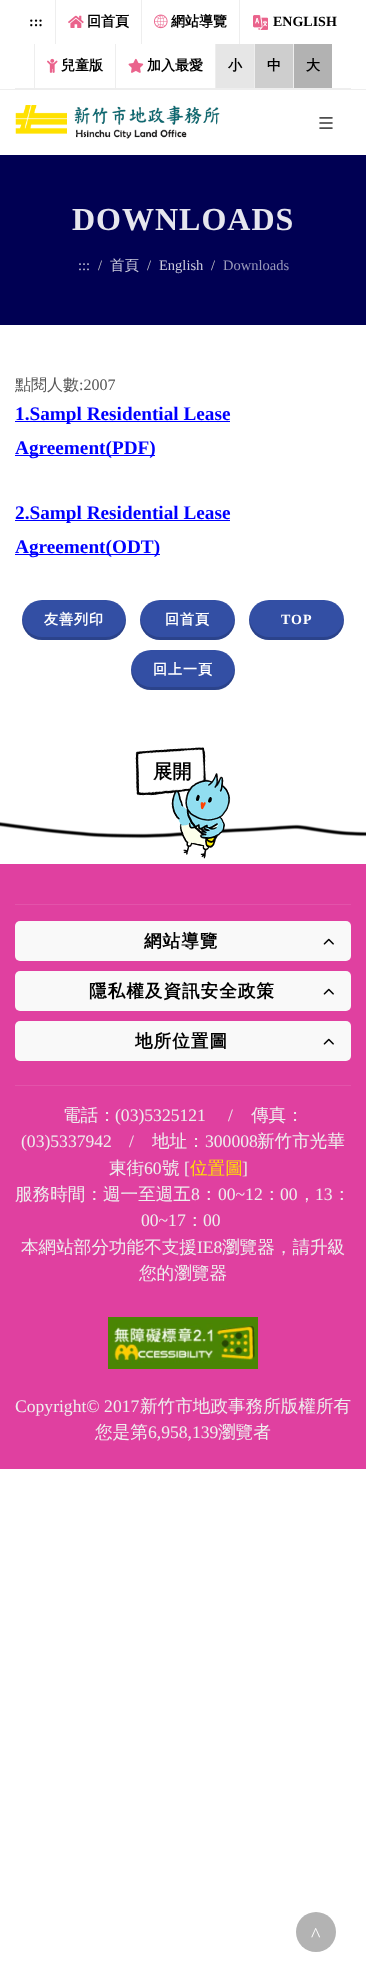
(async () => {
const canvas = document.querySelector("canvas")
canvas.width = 366
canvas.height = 1982
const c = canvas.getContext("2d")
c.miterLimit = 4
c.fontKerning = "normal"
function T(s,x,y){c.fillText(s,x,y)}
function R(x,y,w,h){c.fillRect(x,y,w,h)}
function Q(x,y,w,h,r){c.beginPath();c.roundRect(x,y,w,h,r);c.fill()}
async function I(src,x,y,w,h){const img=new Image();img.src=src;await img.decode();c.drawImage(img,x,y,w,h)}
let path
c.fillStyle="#fff"
R(0,0,366,1982)
c.fillStyle="#eee"
R(0,89,366,1)
R(15,88,336,1)
c.font="bold 14px Liberation Serif"
c.fillStyle="#000"
T(":::",29,26)
c.fillStyle="#eee"
R(55,0,1,44)
await I("1.png",68,15,16,13)
c.font="bold 14px WenQuanYi Zen Hei"
c.fillStyle="#000"
T("回首頁",87,26)
c.fillStyle="#eee"
R(141,0,1,44)
await I("2.png",154,14,14,15)
c.fillStyle="#000"
T("網站導覽",171,26)
c.fillStyle="#eee"
R(239,0,1,44)
await I("3.png",253,15,15,15)
c.font="bold 14px Liberation Serif"
c.fillStyle="#000"
T("ENGLISH",273,26)
c.fillStyle="#eee"
R(34,44,1,44)
await I("4.png",47,58,11,15)
c.font="bold 14px WenQuanYi Zen Hei"
c.fillStyle="#000"
T("兒童版",61,70)
c.fillStyle="#eee"
R(115,44,1,44)
await I("5.png",128,58,16,15)
c.fillStyle="#000"
T("加入最愛",147,70)
c.fillStyle="#eee"
R(215,44,1,44)
c.fillStyle="#e6e6e6"
R(216,44,38,44)
c.fillStyle="#000"
T("小",228,70)
c.fillStyle="#eee"
R(254,44,1,44)
c.fillStyle="#cecece"
R(255,44,38,44)
c.fillStyle="#000"
T("中",267,70)
c.fillStyle="#eee"
R(293,44,1,44)
c.fillStyle="#b2b2b2"
R(294,44,38,44)
c.fillStyle="#000"
T("大",306,70)
await I("6.png",15,105,205,34)
await I("7.png",319,117,14,12)
c.fillStyle="#000053"
R(0,155,366,170)
c.letterSpacing="1px"
c.font="bold 32px Liberation Serif"
c.fillStyle="#e6e6ee"
T("DOWNLOADS",72,230)
c.letterSpacing="0px"
c.font="14.5px Liberation Serif"
c.fillStyle="#ccd"
T(":::",78,270)
c.fillStyle="#ccc"
T("/",98,270)
c.font="500 14.5px WenQuanYi Zen Hei"
c.fillStyle="#ccd"
T("首頁",110,270)
c.font="14.5px Liberation Serif"
c.fillStyle="#ccc"
T("/",147,270)
c.fillStyle="#ccd"
T("English",159,270)
c.fillStyle="#ccc"
T("/",211,270)
c.fillStyle="#9999ba"
T("Downloads",223,270)
c.font="500 16px WenQuanYi Zen Hei"
c.fillStyle="#555"
T("點閱人數",15,390)
c.font="16px Liberation Serif"
T(":2007",79,390)
c.fillStyle="#00f"
R(15,421,215,1)
c.font="bold 19.25px Liberation Serif"
T("1.Sampl Residential Lease",15,420)
R(15,455,140,1)
T("Agreement(PDF)",15,454)
R(15,520,215,1)
T("2.Sampl Residential Lease",15,519)
R(15,554,145,1)
T("Agreement(ODT)",15,553)
c.fillStyle="#334fa4"
Q(22,600,104,40,20)
c.fillStyle="#00000026"
path = new Path2D("M22 618c-1 10 6 20 16 22h15h57c10-2 17-12 16-22c-1 11-10 19-20 19h-64c-10 0-19-8-20-19z")
c.fill(path)
c.letterSpacing="1px"
c.font="bold 14px WenQuanYi Zen Hei"
c.fillStyle="#fff"
T("友善列印",44,624)
c.fillStyle="#334fa4"
Q(140,600,95,40,20)
c.fillStyle="#00000026"
path = new Path2D("M140 618v2c0 11 9 20 20 20h55c11 0 20-9 20-20v-2c-1 11-10 19-20 19h-55c-10 0-19-8-20-19z")
c.fill(path)
c.fillStyle="#fff"
T("回首頁",165,624)
c.fillStyle="#334fa4"
Q(249,600,95,40,20)
c.fillStyle="#00000026"
path = new Path2D("M249 618v2c0 11 9 20 20 20h55c11 0 20-9 20-20v-2c-1 11-10 19-20 19h-55c-10 0-19-8-20-19z")
c.fill(path)
c.font="bold 14px Liberation Serif"
c.fillStyle="#fff"
T("TOP",281,624)
c.fillStyle="#334fa4"
Q(131,650,104,40,20)
c.fillStyle="#00000026"
path = new Path2D("M131 668c-1 10 6 20 16 22h15h57c10-2 17-12 16-22c-1 11-10 19-20 19h-64c-10 0-19-8-20-19z")
c.fill(path)
c.font="bold 14px WenQuanYi Zen Hei"
c.fillStyle="#fff"
T("回上一頁",153,674)
await I("8.png",0,821,366,18)
await I("9.png",135,747,96,112)
c.letterSpacing="0px"
c.font="bold 19.25px WenQuanYi Zen Hei"
c.fillStyle="#000"
T("展開",153,778)
c.fillStyle="#e040a0"
R(0,864,366,605)
c.fillStyle="#e353aa"
R(15,904,336,1)
c.fillStyle="#f9f9f9"
Q(15,921,336,40,5)
c.letterSpacing="1px"
c.font="bold 17.6px WenQuanYi Zen Hei"
c.fillStyle="#000"
T("網站導覽",144,947)
await I("10.png",323,938,11,7)
c.fillStyle="#f9f9f9"
Q(15,971,336,40,5)
c.fillStyle="#000"
T("隱私權及資訊安全政策",89,997)
await I("10.png",323,988,11,7)
c.fillStyle="#f9f9f9"
Q(15,1021,336,40,5)
c.fillStyle="#000"
T("地所位置圖",135,1047)
await I("10.png",323,1038,11,7)
c.fillStyle="#e353aa"
R(15,1085,336,1)
c.letterSpacing="0px"
c.font="500 17.6px WenQuanYi Zen Hei"
c.fillStyle="#eee"
T("電話：",63,1121)
c.font="17.6px Liberation Serif"
T("(03)5325121",115,1121)
T("/",228,1121)
c.font="500 17.6px WenQuanYi Zen Hei"
T("傳真：",251,1121)
c.font="17.6px Liberation Serif"
T("(03)5337942",21,1147)
T("/",129,1147)
c.font="500 17.6px WenQuanYi Zen Hei"
T("地址：",152,1147)
c.font="17.6px Liberation Serif"
T("300008",205,1147)
c.font="500 17.6px WenQuanYi Zen Hei"
T("新竹市光華",257,1147)
T("東街",109,1174)
c.font="17.6px Liberation Serif"
T("60",144,1174)
c.font="500 17.6px WenQuanYi Zen Hei"
T("號",162,1174)
c.font="17.6px Liberation Serif"
T("[",184,1174)
c.font="500 17.6px WenQuanYi Zen Hei"
c.fillStyle="#ffe100"
T("位置圖",190,1174)
c.font="17.6px Liberation Serif"
c.fillStyle="#eee"
T("]",242,1174)
c.font="500 17.6px WenQuanYi Zen Hei"
T("服務時間：週一至週五",15,1200)
c.font="17.6px Liberation Serif"
T("8",191,1200)
c.font="500 17.6px WenQuanYi Zen Hei"
T("：",200,1200)
c.font="17.6px Liberation Serif"
T("00~12",218,1200)
c.font="500 17.6px WenQuanYi Zen Hei"
T("：",263,1200)
c.font="17.6px Liberation Serif"
T("00",280,1200)
T("13",315,1200)
c.font="500 17.6px WenQuanYi Zen Hei"
T("：",333,1200)
T("，",298,1200)
c.font="17.6px Liberation Serif"
T("00~17",141,1226)
c.font="500 17.6px WenQuanYi Zen Hei"
T("：",186,1226)
c.font="17.6px Liberation Serif"
T("00",203,1226)
c.font="500 17.6px WenQuanYi Zen Hei"
T("本網站部分功能不支援",21,1253)
c.font="17.6px Liberation Serif"
T("IE8",197,1253)
c.font="500 17.6px WenQuanYi Zen Hei"
T("瀏覽器，請升級",222,1253)
T("您的瀏覽器",139,1279)
await I("11.png",108,1317,150,52)
c.font="17.6px Liberation Serif"
T("Copyright© 2017",15,1412)
c.font="500 17.6px WenQuanYi Zen Hei"
T("新竹市地政事務所版權所有",140,1412)
T("您是第",95,1438)
c.font="17.6px Liberation Serif"
T("6,958,139",148,1438)
c.font="500 17.6px WenQuanYi Zen Hei"
T("瀏覽者",218,1438)
c.fillStyle="#b3b3b3"
c.beginPath()
c.arc(316,1932,20,0,7)
c.fill()
c.font="20px Liberation Serif"
c.fillStyle="#fff"
T("^",311,1941)
})()
